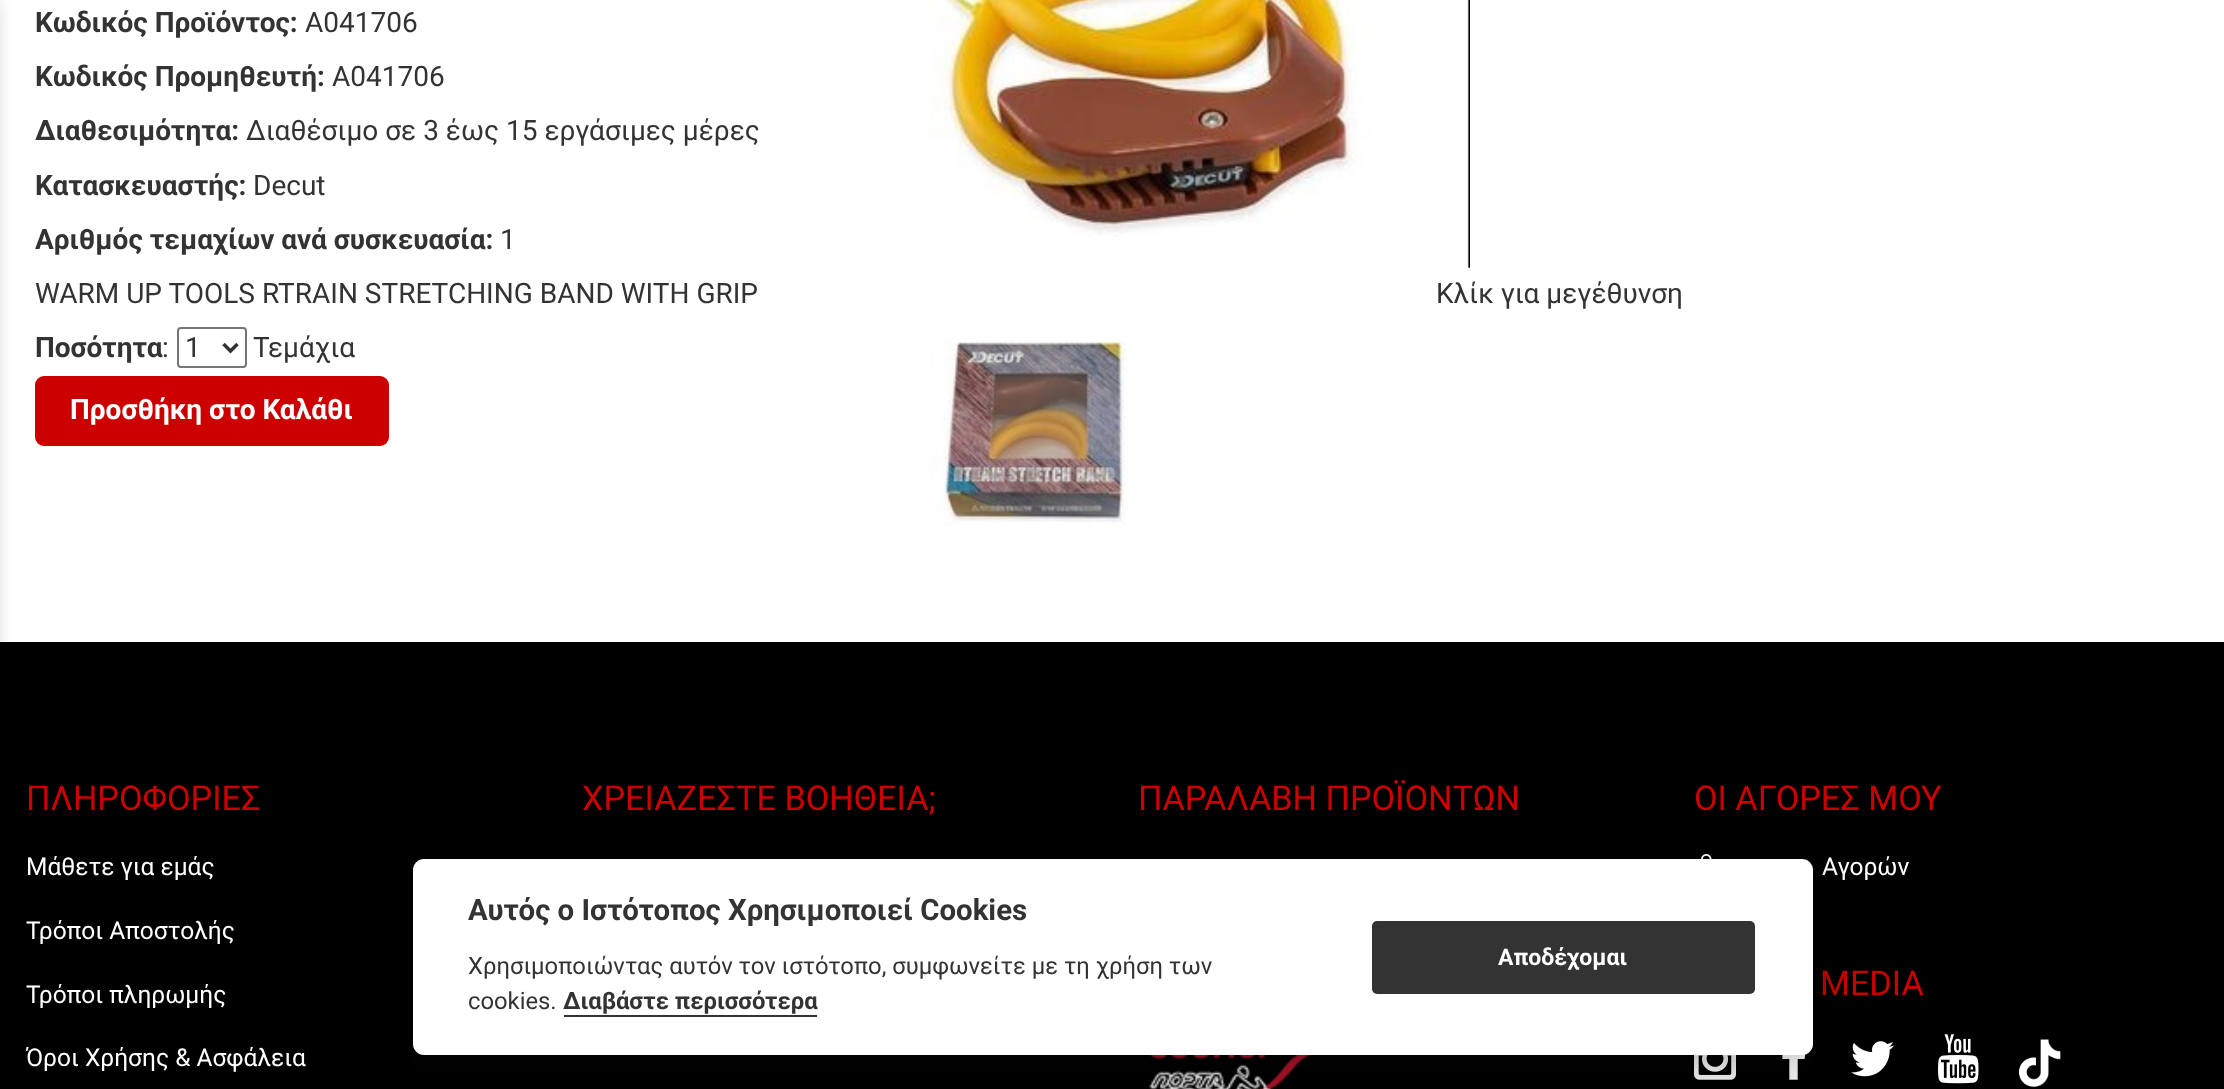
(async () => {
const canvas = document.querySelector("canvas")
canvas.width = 2224
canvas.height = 1089
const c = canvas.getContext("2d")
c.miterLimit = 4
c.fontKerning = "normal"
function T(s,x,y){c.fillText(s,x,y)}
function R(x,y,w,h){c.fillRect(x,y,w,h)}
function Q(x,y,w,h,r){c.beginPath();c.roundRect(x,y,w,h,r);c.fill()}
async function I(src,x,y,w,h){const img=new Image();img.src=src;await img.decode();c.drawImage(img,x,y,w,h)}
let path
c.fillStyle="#fff"
R(0,0,2224,1089)
c.fillStyle="#000"
R(0,642,2224,447)
c.fillStyle="#00000066"
c.filter="blur(10.5px)"
c.beginPath()
c.rect(-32,0,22,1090)
c.fill()
c.filter="none"
c.font="bold 28px Roboto"
c.fillStyle="#333"
T("Κωδικός Προϊόντος:",35,32)
c.font="28px Roboto"
T("A041706",305,32)
c.font="bold 28px Roboto"
T("Κωδικός Προμηθευτή:",35,86)
c.font="28px Roboto"
T("A041706",332,86)
c.font="bold 28px Roboto"
T("Διαθεσιμότητα:",35,140)
c.font="28px Roboto"
T("Διαθέσιμο σε 3 έως 15 εργάσιμες μέρες",246,140)
c.font="bold 28px Roboto"
T("Κατασκευαστής:",35,195)
c.font="28px Roboto"
T("Decut",253,195)
c.font="bold 28px Roboto"
T("Αριθμός τεμαχίων ανά συσκευασία:",35,249)
c.font="28px Roboto"
T("1",500,249)
T("WARM UP TOOLS RTRAIN STRETCHING BAND WITH GRIP",35,303)
c.font="bold 28px Roboto"
T("Ποσότητα",35,357)
c.font="28px Roboto"
T(":",162,357)
c.beginPath()
c.roundRect(178,328,68,39,3)
c.strokeStyle="#767676"
c.lineWidth=2
c.stroke()
path = new Path2D("M223.5 344l7 7l7-7")
c.strokeStyle="#333"
c.lineWidth=3.5
c.stroke(path)
T("1",185,357)
T("Τεμάχια",253,357)
c.fillStyle="#c00"
Q(35,376,354,70,9)
c.font="bold 28px Roboto"
c.fillStyle="#fff"
T("Προσθήκη στο Καλάθι",70,419)
await I("1.png",929,0,541,268)
c.font="28px Roboto"
c.fillStyle="#333"
T("Κλίκ για μεγέθυνση",1436,303)
await I("2.png",929,340,199,185)
c.font="34.25px Roboto"
c.fillStyle="#c00"
T("ΠΛΗΡΟΦΟΡΙΕΣ",26,810)
c.font="24.5px Roboto"
c.fillStyle="#fff"
T("Μάθετε για εμάς",26,875)
T("Τρόποι Αποστολής",26,939)
T("Τρόποι πληρωμής",26,1003)
T("Όροι Χρήσης & Ασφάλεια",26,1066)
c.font="34.25px Roboto"
c.fillStyle="#c00"
T("ΧΡΕΙΑΖΕΣΤΕ ΒΟΗΘΕΙΑ;",582,810)
T("ΠΑΡΑΛΑΒΗ ΠΡΟΪΟΝΤΩΝ",1138,810)
await I("3.png",1149,1055,166,34)
T("ΟΙ ΑΓΟΡΕΣ ΜΟΥ",1694,810)
await I("4.png",1701,854,11,5)
c.font="24.5px Roboto"
c.fillStyle="#fff"
T("Αγορών",1822,875)
c.font="34.25px Roboto"
c.fillStyle="#c00"
T("MEDIA",1820,995)
await I("5.png",1694,1055,42,25)
await I("6.png",1782,1054,24,26)
await I("7.png",1851,1041,43,36)
await I("8.png",1938,1034,41,50)
await I("9.png",2018,1039,43,48)
c.fillStyle="#02020347"
c.filter="blur(26px)"
c.beginPath()
c.roundRect(413,877,1400,196,11)
c.fill()
c.filter="none"
c.fillStyle="#fff"
Q(413,859,1400,196,11)
c.font="bold 29.4px Roboto"
c.fillStyle="#333"
T("Αυτός ο Ιστότοπος Χρησιμοποιεί Cookies",468,920)
c.font="23.8px Roboto"
T("Χρησιμοποιώντας αυτόν τον ιστότοπο, συμφωνείτε με τη χρήση των",468,974)
T("cookies.",468,1009)
c.font="bold 23.8px Roboto"
T("Διαβάστε περισσότερα",563,1009)
R(564,1015,253,2)
c.beginPath()
c.roundRect(1371,920,385,75,6)
c.fill()
c.strokeStyle="#fff"
c.lineWidth=2
c.stroke()
c.font="bold 23px Roboto"
c.fillStyle="#fff"
T("Αποδέχομαι",1498,965)
})()
